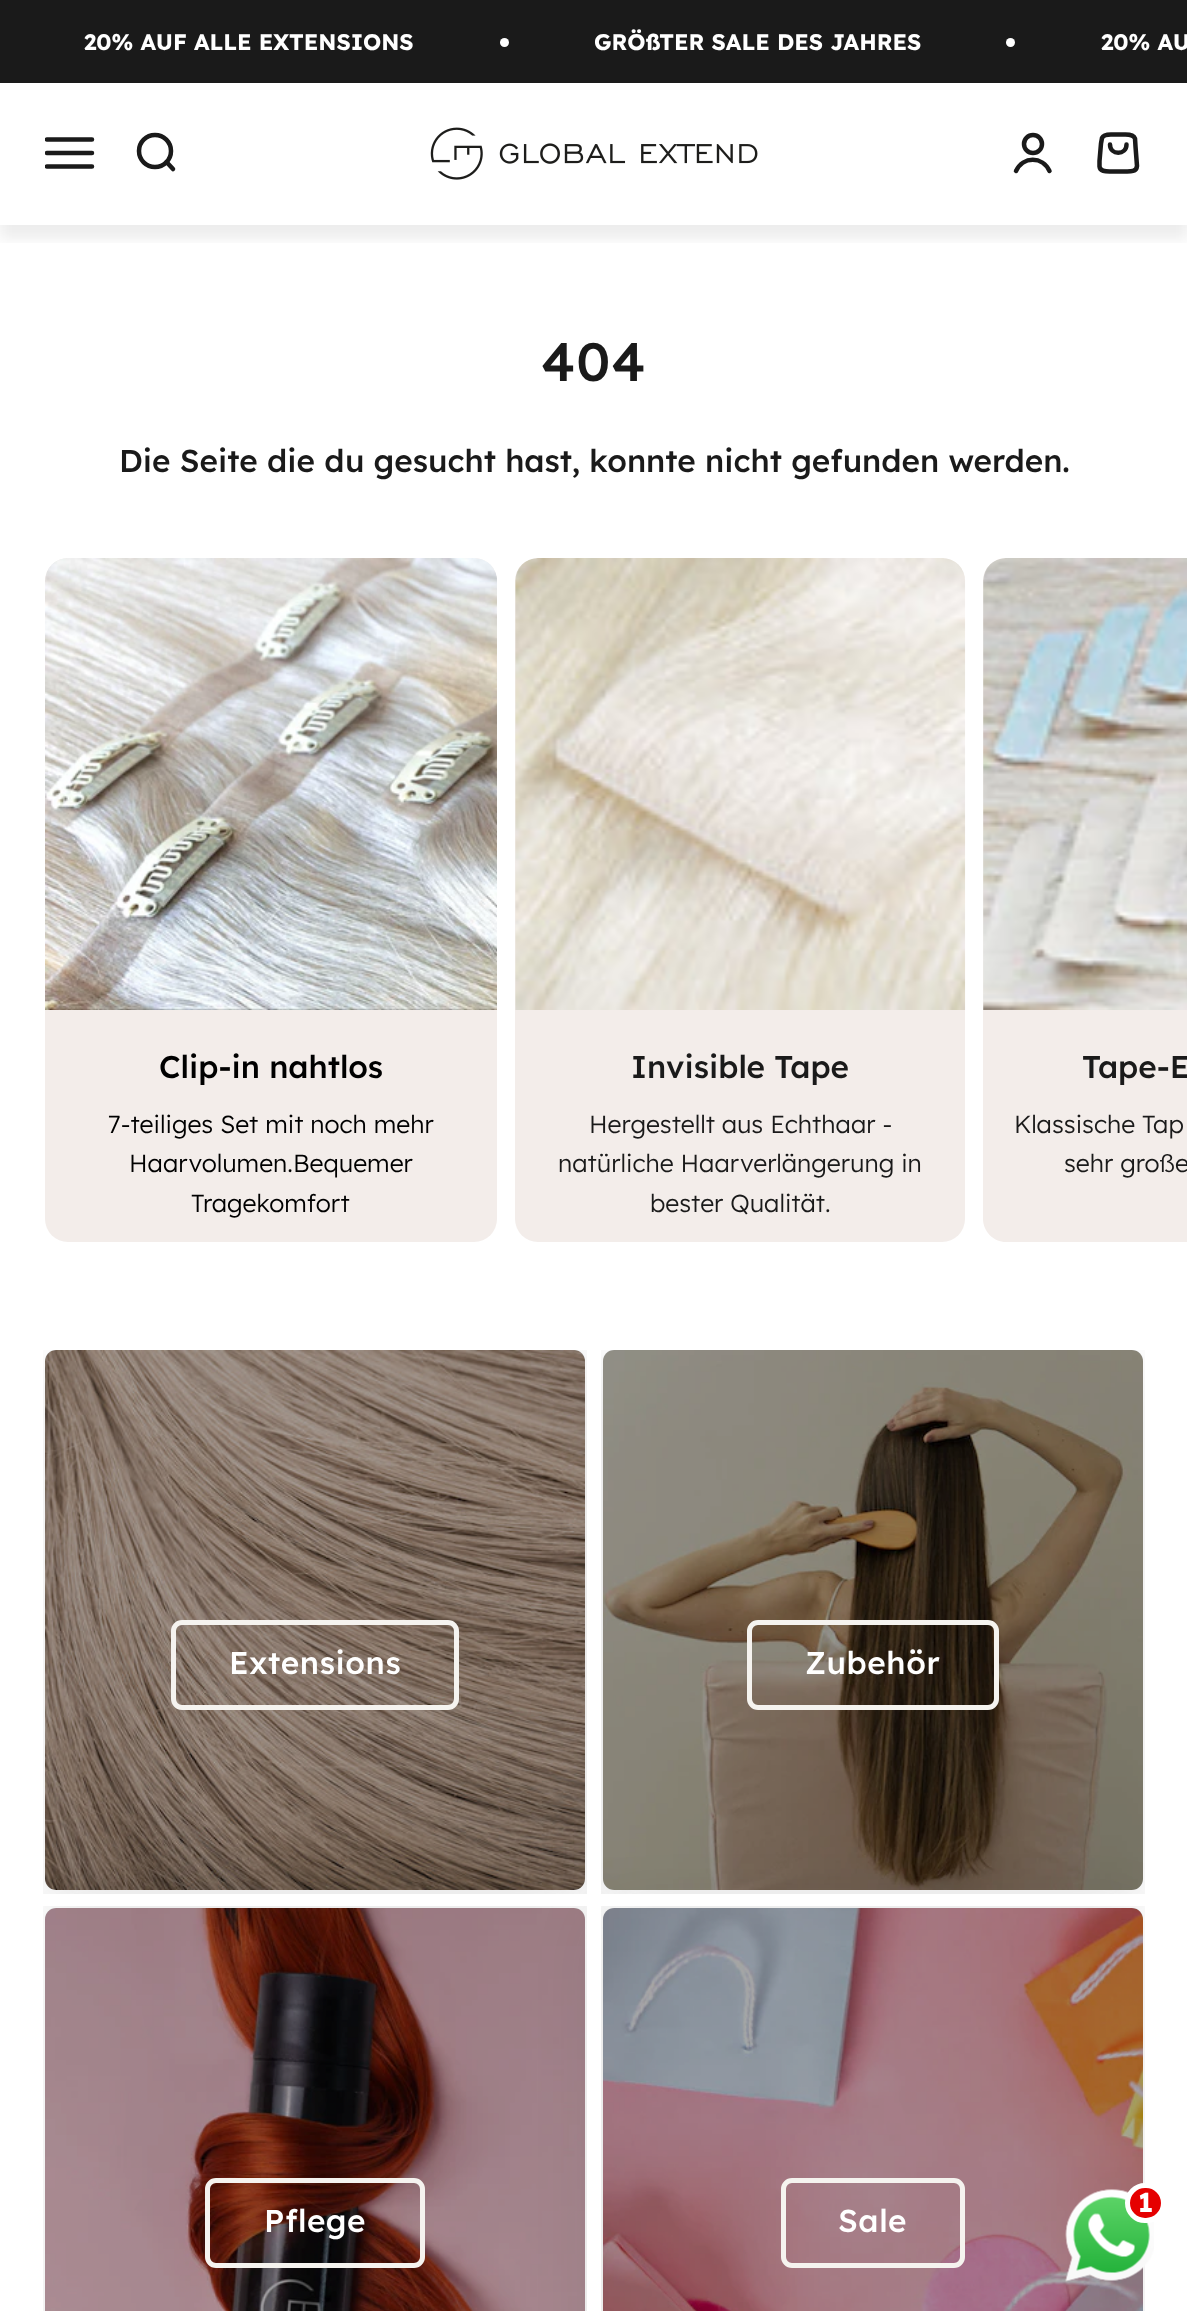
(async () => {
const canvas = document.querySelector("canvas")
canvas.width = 1187
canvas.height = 2311
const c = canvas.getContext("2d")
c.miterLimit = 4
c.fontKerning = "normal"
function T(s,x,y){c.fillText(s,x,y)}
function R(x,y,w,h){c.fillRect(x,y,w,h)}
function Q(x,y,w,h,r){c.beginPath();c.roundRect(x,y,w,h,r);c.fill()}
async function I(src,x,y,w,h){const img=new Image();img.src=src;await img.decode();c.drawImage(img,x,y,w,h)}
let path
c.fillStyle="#fff"
R(0,0,1187,2311)
c.fillStyle="#1a1a1a"
R(0,0,1187,83)
c.font="bold 22.5px Lexend"
c.fillStyle="#fff"
T("20% AUF ALLE EXTENSIONS",84,50)
c.beginPath()
c.arc(504.5,42.5,4.5,0,7)
c.fill()
T("GRÖßTER SALE DES JAHRES",594,50)
c.beginPath()
c.arc(1010.5,42.5,4.5,0,7)
c.fill()
T("20% AU",1101,50)
c.save()
c.beginPath()
c.rect(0,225,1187,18)
c.clip()
c.fillStyle="#00000012"
c.filter="blur(7px)"
c.beginPath()
c.rect(0,97,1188,142)
c.fill()
c.filter="none"
c.restore()
c.save()
c.beginPath()
c.rect(45,128,50,50)
c.clip()
path = new Path2D("M47 139.5h45m-45 13.5h45m-45 13.5h45")
c.strokeStyle="#1a1a1a"
c.lineWidth=4.5
c.lineCap="round"
c.stroke(path)
c.restore()
c.beginPath()
c.arc(155,151,16,0,7)
c.strokeStyle="#1a1a1a"
c.lineWidth=4.5
c.stroke()
path = new Path2D("M166.5 162l6.5 7")
c.lineCap="round"
c.lineJoin="round"
c.stroke(path)
await I("1.png",430,127,328,53)
c.beginPath()
c.arc(1033,144,9,0,7)
c.stroke()
path = new Path2D("M1016 171c7-15 26.5-15 33.5 0")
c.lineJoin="miter"
c.stroke(path)
path = new Path2D("M1126.5 144.5c0 11-16.5 11-16.5 0m-9-1l-1.5 17.5v5.5c.5 5 6 5 10 5h14.5c5 0 12.5 1 13-5.5l-1.5-19.5l-.5-8c-1.5-4-6-4-9.5-4h-14.5c-3.5 0-7.5 0-9 3.5z")
c.lineJoin="round"
c.stroke(path)
c.letterSpacing="1px"
c.font="500 54px Lexend"
c.fillStyle="#1a1a1a"
T("404",541,381)
c.letterSpacing="0px"
c.font="500 31.5px Lexend"
T("Die Seite die du gesucht hast, konnte nicht gefunden werden.",119,472)
c.fillStyle="#f3edea"
Q(45,558,452,684,23)
await I("2.png",45,558,452,452)
c.fillStyle="#000"
T("Clip-in nahtlos",159,1078)
c.font="300 24.75px Lexend"
T("7-teiliges Set mit noch mehr",108,1133)
T("Haarvolumen.Bequemer",129,1172)
T("Tragekomfort",191,1212)
c.fillStyle="#f3edea"
Q(515,558,450,684,23)
await I("3.png",515,558,451,452)
c.font="500 31.5px Lexend"
c.fillStyle="#1a1a1a"
T("Invisible Tape",631,1078)
c.font="300 24.75px Lexend"
T("Hergestellt aus Echthaar -",589,1133)
T("natürliche Haarverlängerung in",558,1172)
T("bester Qualität.",650,1212)
c.fillStyle="#f3edea"
path = new Path2D("M1006 558h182v684h-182c-12.5 0-23-10.5-23-23v-638c0-12.5 10.5-23 23-23z")
c.fill(path)
await I("4.png",983,558,204,452)
c.font="500 31.5px Lexend"
c.fillStyle="#1a1a1a"
T("Tape-E",1082,1078)
c.font="300 24.75px Lexend"
T("Klassische Tap",1014,1133)
T("sehr große",1064,1172)
await I("5.png",43,1350,544,544)
c.fillStyle="#00000059"
Q(45,1350,540,540,11)
c.beginPath()
c.roundRect(173.5,1622.5,283,85,8.5)
c.strokeStyle="#f5f3ef"
c.lineWidth=5
c.lineJoin="miter"
c.stroke()
c.letterSpacing="0.6px"
c.font="500 31.5px Lexend"
c.fillStyle="#fff"
T("Extensions",229,1674)
await I("6.png",601,1350,544,544)
c.fillStyle="#00000059"
Q(603,1350,540,540,11)
c.beginPath()
c.roundRect(749.5,1622.5,247,85,8.5)
c.stroke()
c.fillStyle="#fff"
T("Zubehör",805,1674)
await I("7.png",43,1906,544,405)
c.fillStyle="#0000004d"
Q(45,1908,540,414,11)
c.beginPath()
c.roundRect(207.5,2180.5,215,85,8.5)
c.stroke()
c.fillStyle="#fff"
T("Pflege",264,2232)
await I("8.png",601,1906,544,405)
c.fillStyle="#00000059"
Q(603,1908,540,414,11)
c.beginPath()
c.roundRect(783.5,2180.5,179,85,8.5)
c.stroke()
c.fillStyle="#fff"
T("Sale",838,2232)
await I("9.png",1065,2189,89,93)
c.fillStyle="#e50000"
c.beginPath()
c.roundRect(1127.5,2185.5,36,35,17.5)
c.fill()
c.strokeStyle="#fff"
c.stroke()
c.letterSpacing="0px"
c.font="bold 27px Lexend"
c.fillStyle="#fff"
T("1",1138,2212)
})()
